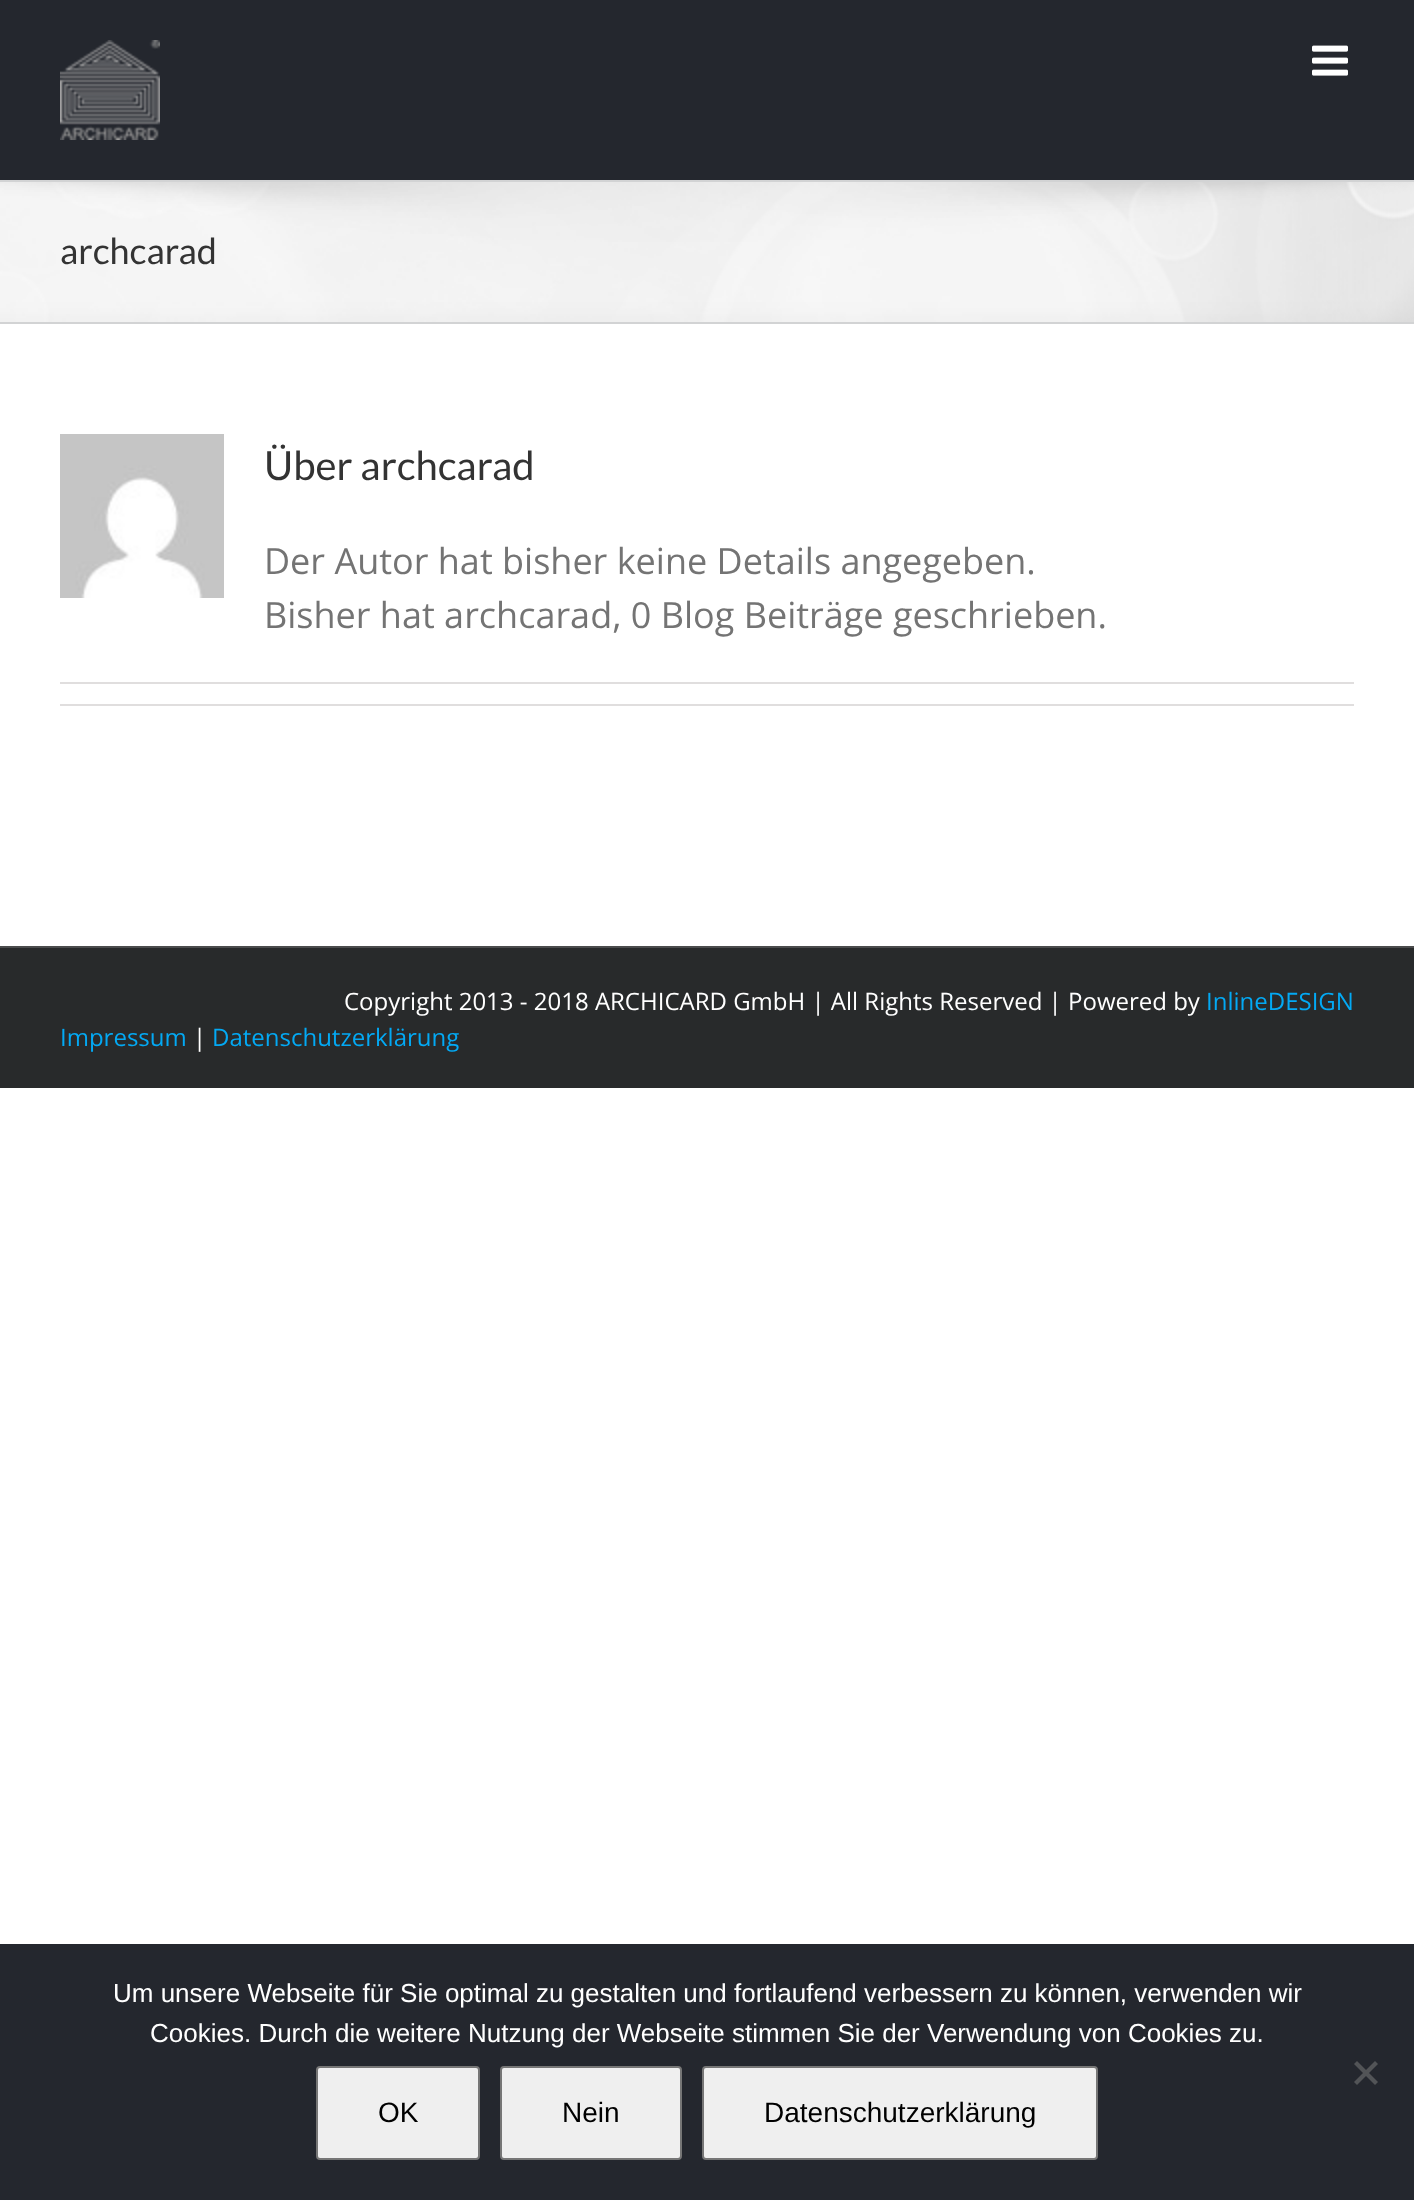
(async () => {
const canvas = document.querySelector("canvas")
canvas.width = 1414
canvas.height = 2200
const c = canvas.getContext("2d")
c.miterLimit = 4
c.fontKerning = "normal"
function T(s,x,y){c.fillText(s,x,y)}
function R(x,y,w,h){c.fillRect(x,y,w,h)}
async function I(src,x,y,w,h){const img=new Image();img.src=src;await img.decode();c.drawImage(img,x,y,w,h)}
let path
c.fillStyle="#fff"
R(0,0,1414,2200)
c.fillStyle="#24272e"
R(0,0,1414,180)
await I("1.png",60,40,100,100)
await I("2.png",1312,45,36,31)
c.fillStyle="#f6f6f6"
R(0,182,1414,140)
await I("3.png",0,182,1414,140)
c.fillStyle="#d2d3d4"
R(0,180,1414,2)
R(0,322,1414,2)
c.font="36px Lato"
c.fillStyle="#333"
T("archcarad",60,264)
await I("4.png",60,434,164,164)
c.font="40px Lato"
T("Über archcarad",264,480)
c.font="36px Open Sans"
c.fillStyle="#747474"
T("Der Autor hat bisher keine Details angegeben.",264,574)
T("Bisher hat archcarad, 0 Blog Beiträge geschrieben.",264,628)
c.fillStyle="#e0dede"
R(60,682,1294,2)
R(60,704,1294,2)
c.fillStyle="#282a2b"
R(0,948,1414,140)
c.fillStyle="#4b4c4d"
R(0,946,1414,2)
c.font="24px Open Sans"
c.fillStyle="#fff"
T("Copyright 2013 - 2018 ARCHICARD GmbH | All Rights Reserved | Powered by",344,1010)
c.fillStyle="#03a9f4"
T("InlineDESIGN",1206,1010)
T("Impressum",60,1046)
c.fillStyle="#fff"
T("|",193,1046)
c.fillStyle="#03a9f4"
T("Datenschutzerklärung",212,1046)
c.fillStyle="#24272e"
R(0,1944,1414,256)
c.font="26px Liberation Sans"
c.fillStyle="#fff"
T("Um unsere Webseite für Sie optimal zu gestalten und fortlaufend verbessern zu können, verwenden wir",113,2002)
T("Cookies. Durch die weitere Nutzung der Webseite stimmen Sie der Verwendung von Cookies zu.",150,2042)
c.fillStyle="#525457"
path = new Path2D("M1375 2061l3 3l-21 21l-3-3z")
c.fill(path)
path = new Path2D("M1354 2064l3-3l21 21l-3 3z")
c.fill(path)
c.fillStyle="#efefef"
c.beginPath()
c.roundRect(317,2067,162,92,3)
c.fill()
c.strokeStyle="#767676"
c.lineWidth=2
c.stroke()
c.font="28px Liberation Sans"
c.fillStyle="#000"
T("OK",378,2122)
c.fillStyle="#efefef"
c.beginPath()
c.roundRect(501,2067,180,92,3)
c.fill()
c.stroke()
c.fillStyle="#000"
T("Nein",562,2122)
c.fillStyle="#efefef"
c.beginPath()
c.roundRect(703,2067,394,92,3)
c.fill()
c.stroke()
c.fillStyle="#000"
T("Datenschutzerklärung",764,2122)
})()
